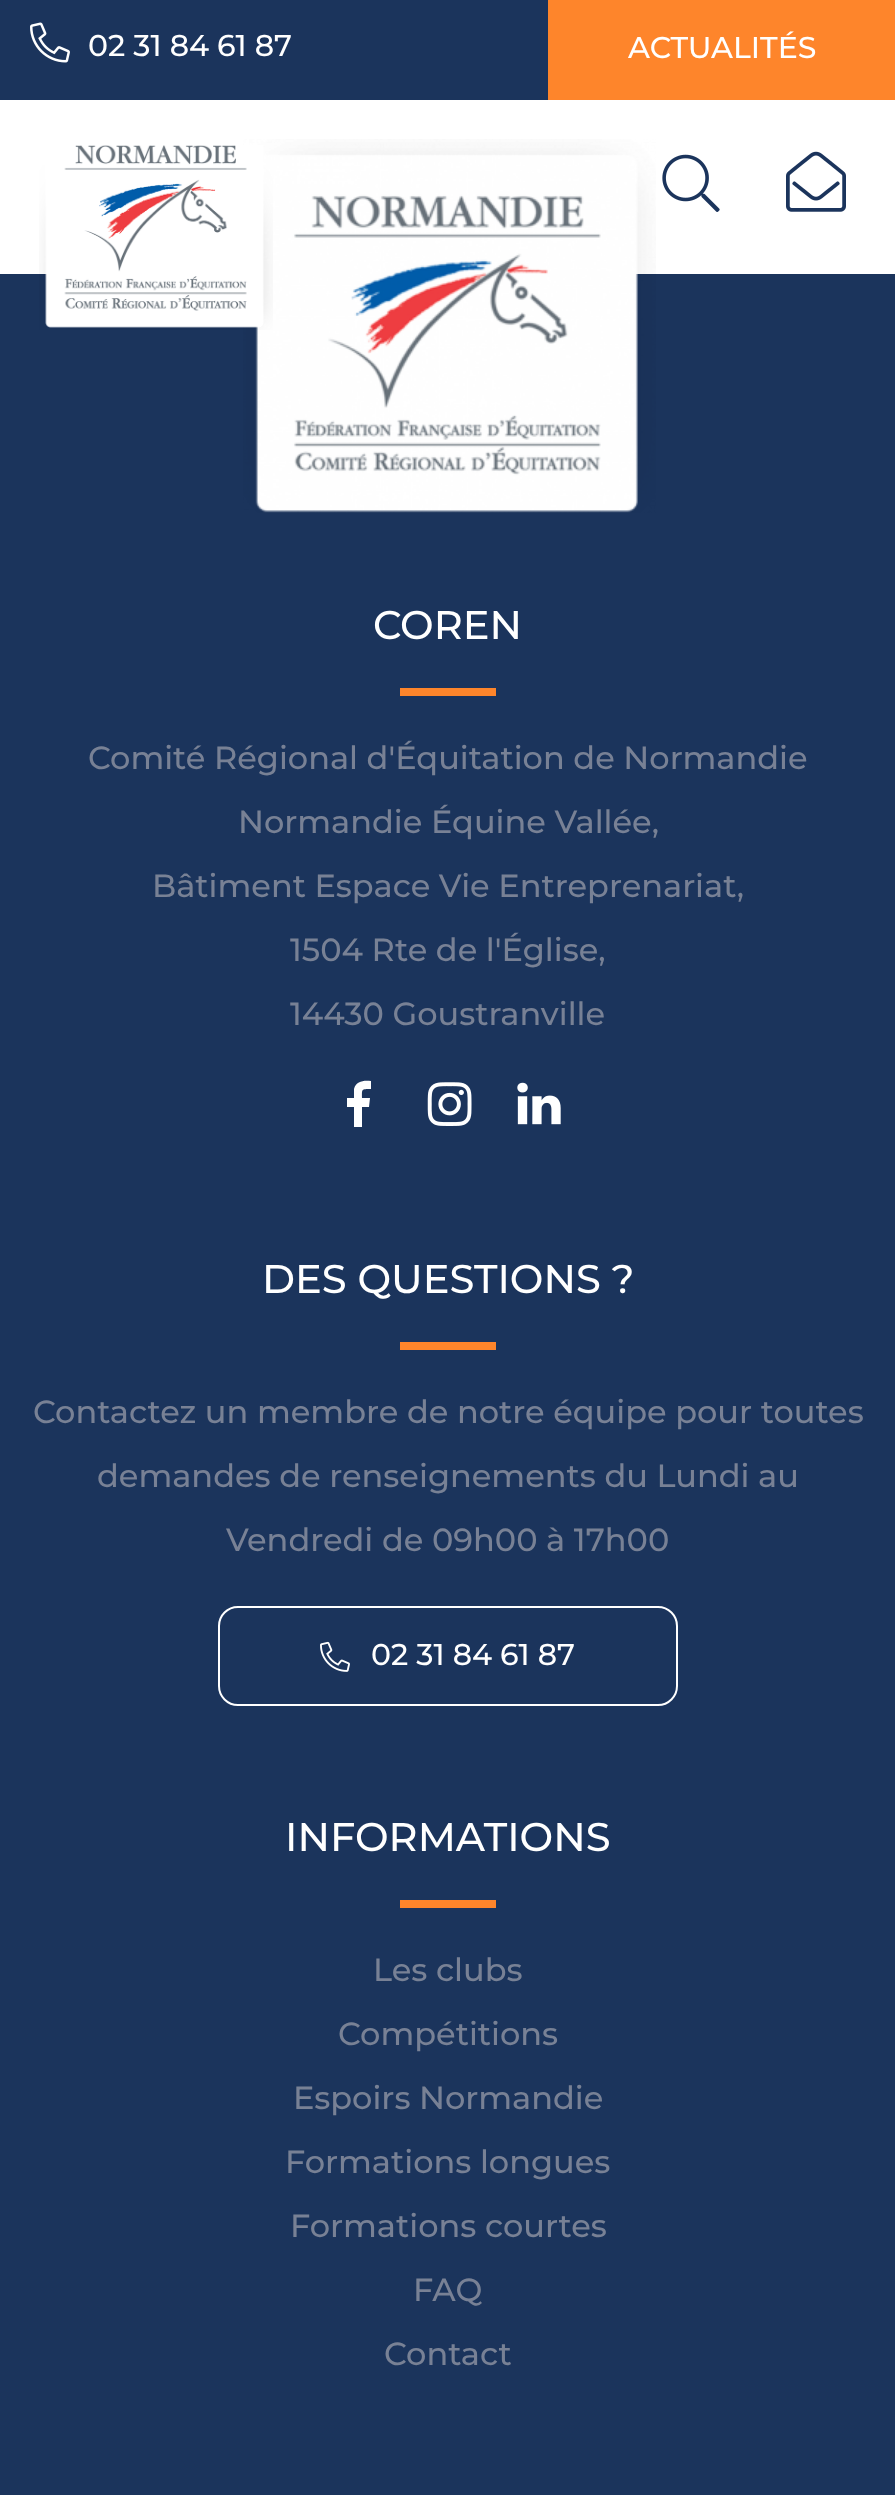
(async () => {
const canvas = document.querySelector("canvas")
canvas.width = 895
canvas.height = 2495
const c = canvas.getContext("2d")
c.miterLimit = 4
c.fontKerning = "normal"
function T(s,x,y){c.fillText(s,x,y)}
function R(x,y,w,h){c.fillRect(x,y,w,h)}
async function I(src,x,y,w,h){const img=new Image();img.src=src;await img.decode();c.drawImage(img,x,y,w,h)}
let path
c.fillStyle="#fff"
R(0,0,895,2495)
c.fillStyle="#1b345c"
R(0,0,548,100)
await I("1.png",30,22,40,41)
c.font="500 30px Montserrat"
c.fillStyle="#fff"
T("02 31 84 61 87",88,56)
c.fillStyle="#fe852b"
R(548,0,347,100)
c.fillStyle="#fff"
T("ACTUALITÉS",628,58)
c.fillStyle="#1b345c"
R(0,274,895,2221)
await I("5.png",243,139,413,374)
await I("2.png",39,145,234,185)
await I("3.png",662,154,58,58)
await I("4.png",786,151,60,61)
c.font="500 40px Montserrat"
c.fillStyle="#fff"
T("COREN",373,639)
c.fillStyle="#fe852b"
R(400,688,96,8)
c.font="500 32px Montserrat"
c.fillStyle="#788195"
T("Comité Régional d'Équitation de Normandie",88,769)
T("Normandie Équine Vallée,",238,833)
T("Bâtiment Espace Vie Entreprenariat,",152,897)
T("1504 Rte de l'Église,",290,961)
T("14430 Goustranville",290,1025)
c.fillStyle="#fff"
path = new Path2D("M354 1127v-20h-7v-9h7v-9c2-8 10-9 17-8v8c-10 0-9 0-9 9h8l-1 9h-7v20z")
c.fill(path)
await I("6.png",427,1082,45,44)
await I("7.png",517,1082,44,43)
c.font="500 40px Montserrat"
T("DES QUESTIONS ?",262,1293)
c.fillStyle="#fe852b"
R(400,1342,96,8)
c.font="500 32px Montserrat"
c.fillStyle="#788195"
T("Contactez un membre de notre équipe pour toutes",33,1423)
T("demandes de renseignements du Lundi au",97,1487)
T("Vendredi de 09h00 à 17h00",226,1551)
c.beginPath()
c.roundRect(219,1607,458,98,19)
c.strokeStyle="#fff"
c.lineWidth=2
c.stroke()
await I("8.png",320,1641,30,31)
c.font="500 30px Montserrat"
c.fillStyle="#fff"
T("02 31 84 61 87",371,1665)
c.font="500 40px Montserrat"
T("INFORMATIONS",285,1851)
c.fillStyle="#fe852b"
R(400,1900,96,8)
c.font="500 32px Montserrat"
c.fillStyle="#788195"
T("Les clubs",373,1981)
T("Compétitions",338,2045)
T("Espoirs Normandie",293,2109)
T("Formations longues",285,2173)
T("Formations courtes",290,2237)
T("FAQ",413,2301)
T("Contact",384,2365)
})()
